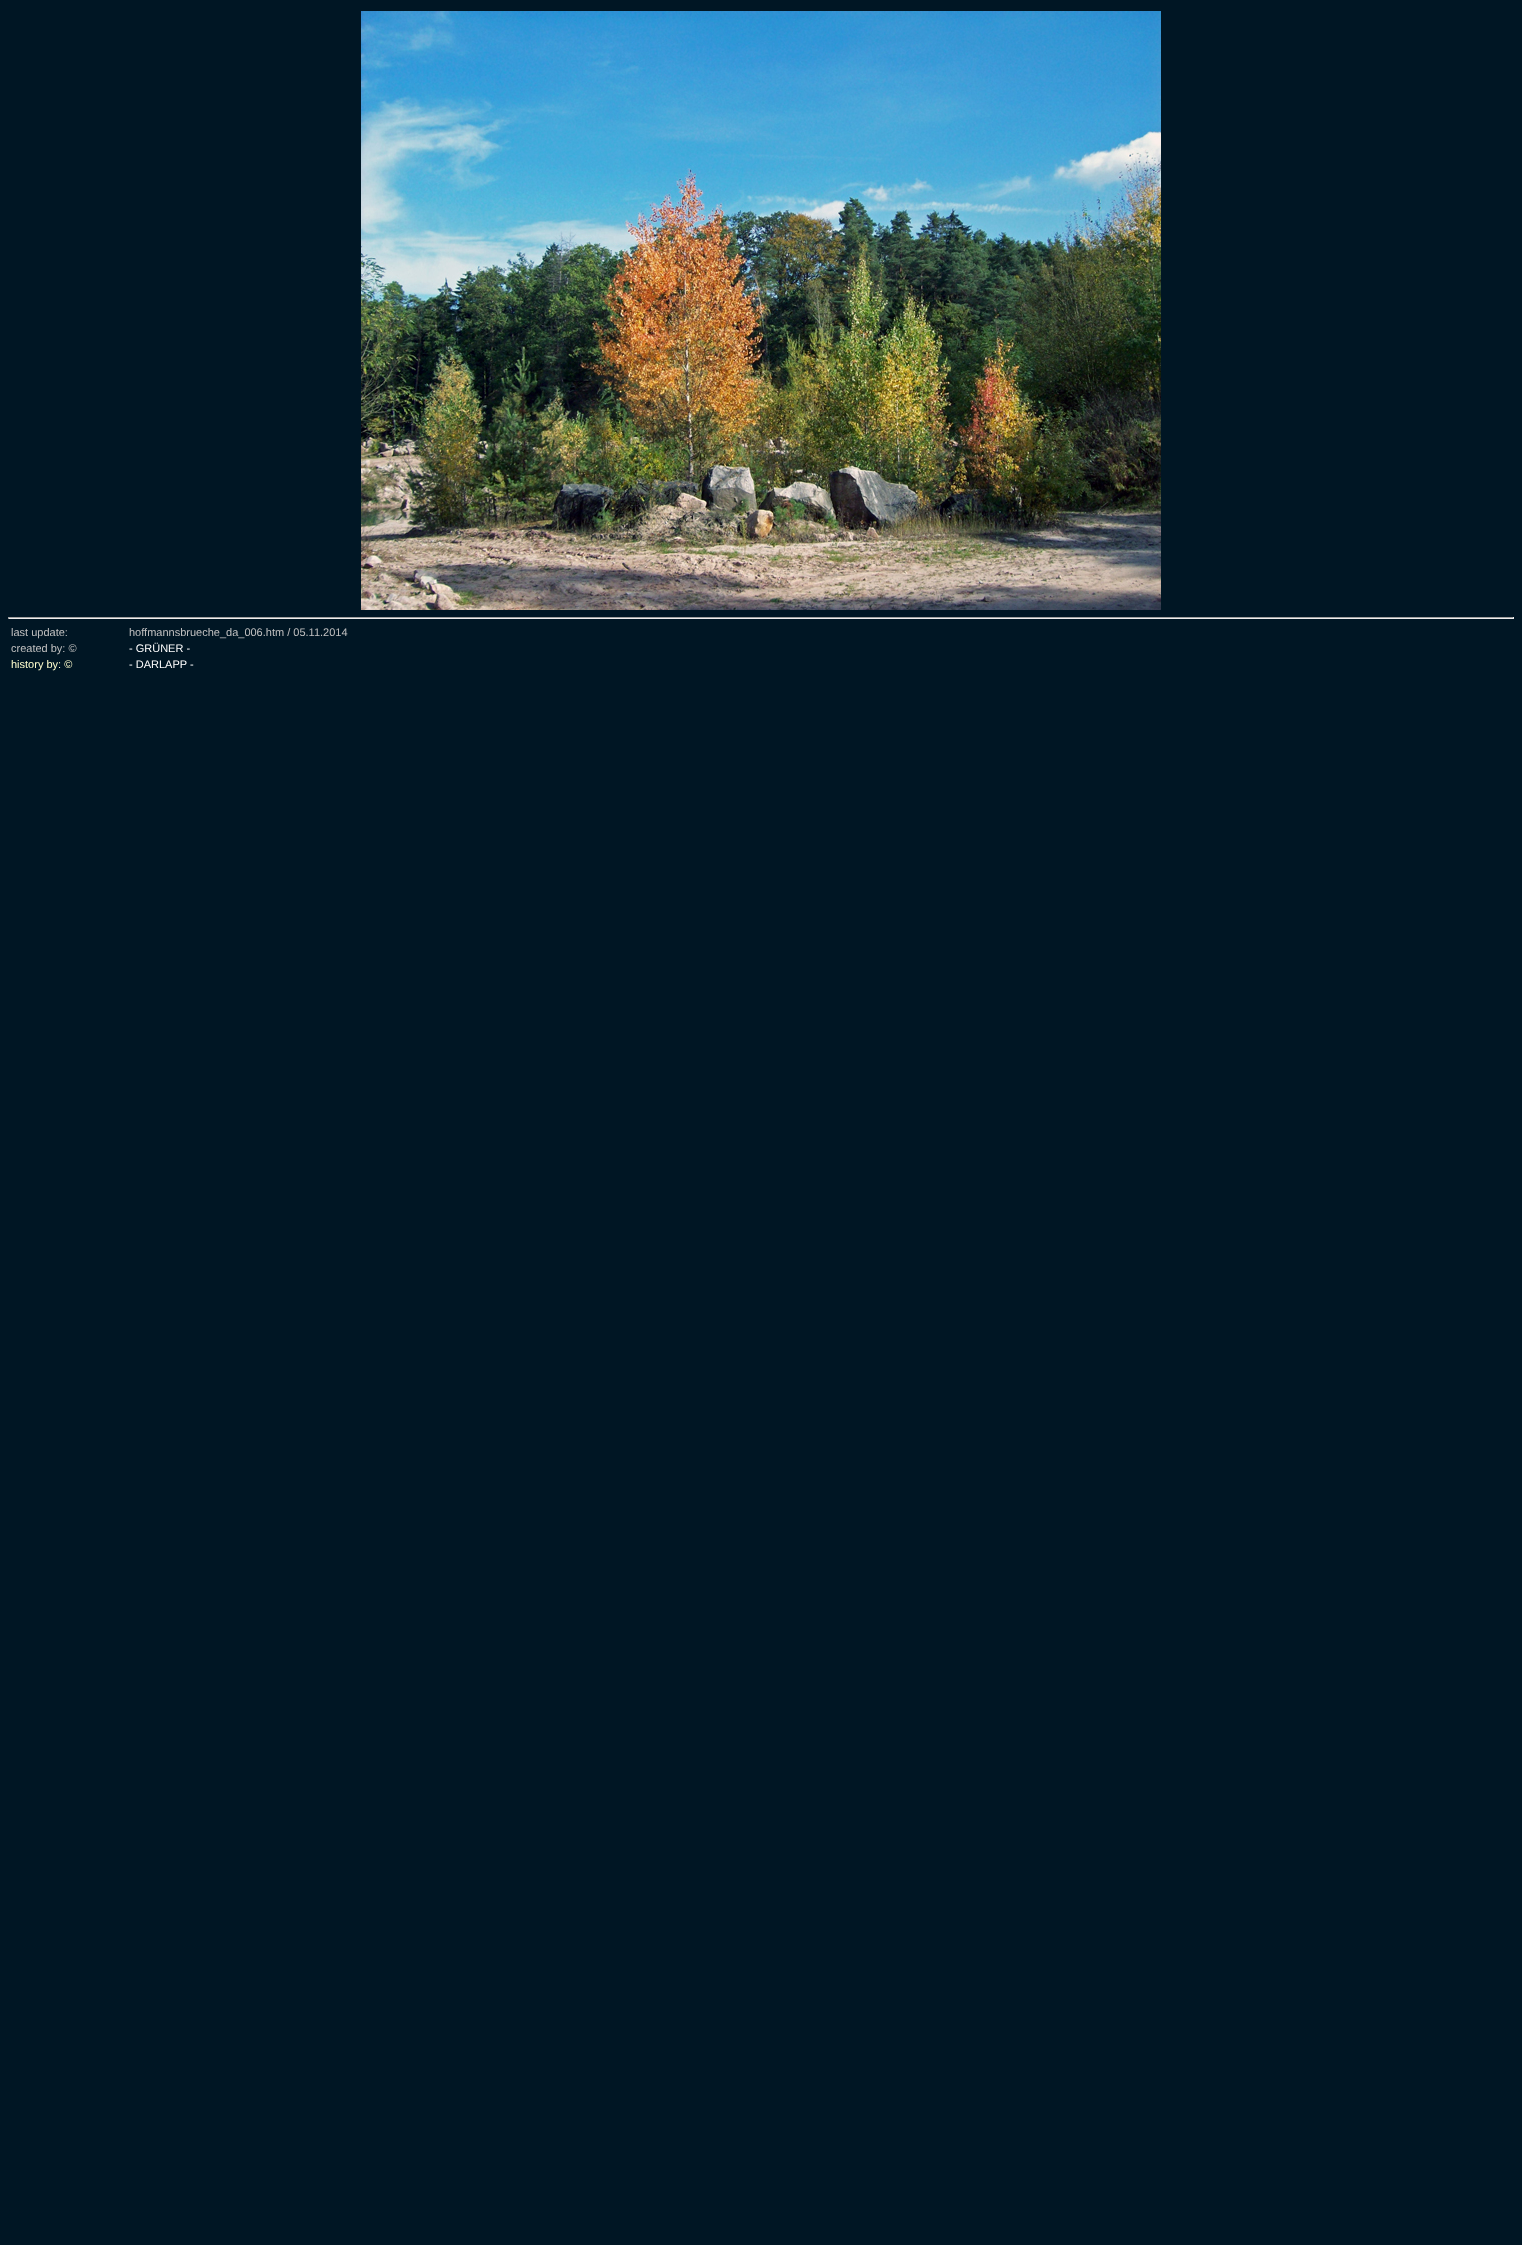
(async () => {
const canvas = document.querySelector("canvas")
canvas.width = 1522
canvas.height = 2245
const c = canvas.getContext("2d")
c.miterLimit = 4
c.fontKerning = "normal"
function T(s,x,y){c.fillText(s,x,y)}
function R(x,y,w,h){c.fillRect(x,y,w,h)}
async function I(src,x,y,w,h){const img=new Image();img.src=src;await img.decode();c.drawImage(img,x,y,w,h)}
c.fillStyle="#001624"
R(0,0,1522,2245)
await I("1.png",361,11,800,599)
c.fillStyle="#9f9f9f"
R(8,617,1506,1)
c.fillStyle="#eee"
R(1513,617,1,2)
R(8,618,1506,1)
c.fillStyle="#9f9f9f"
R(8,617,1,2)
c.font="11px Liberation Sans"
c.fillStyle="#c0c0c0"
T("last update:",11,636)
T("hoffmannsbrueche_da_006.htm / 05.11.2014",129,636)
T("created by: ©",11,652)
c.fillStyle="#fff"
T("- GRÜNER -",129,652)
c.fillStyle="#ffffce"
T("history by: ©",11,668)
c.fillStyle="#fff"
T("- DARLAPP -",129,668)
})()
